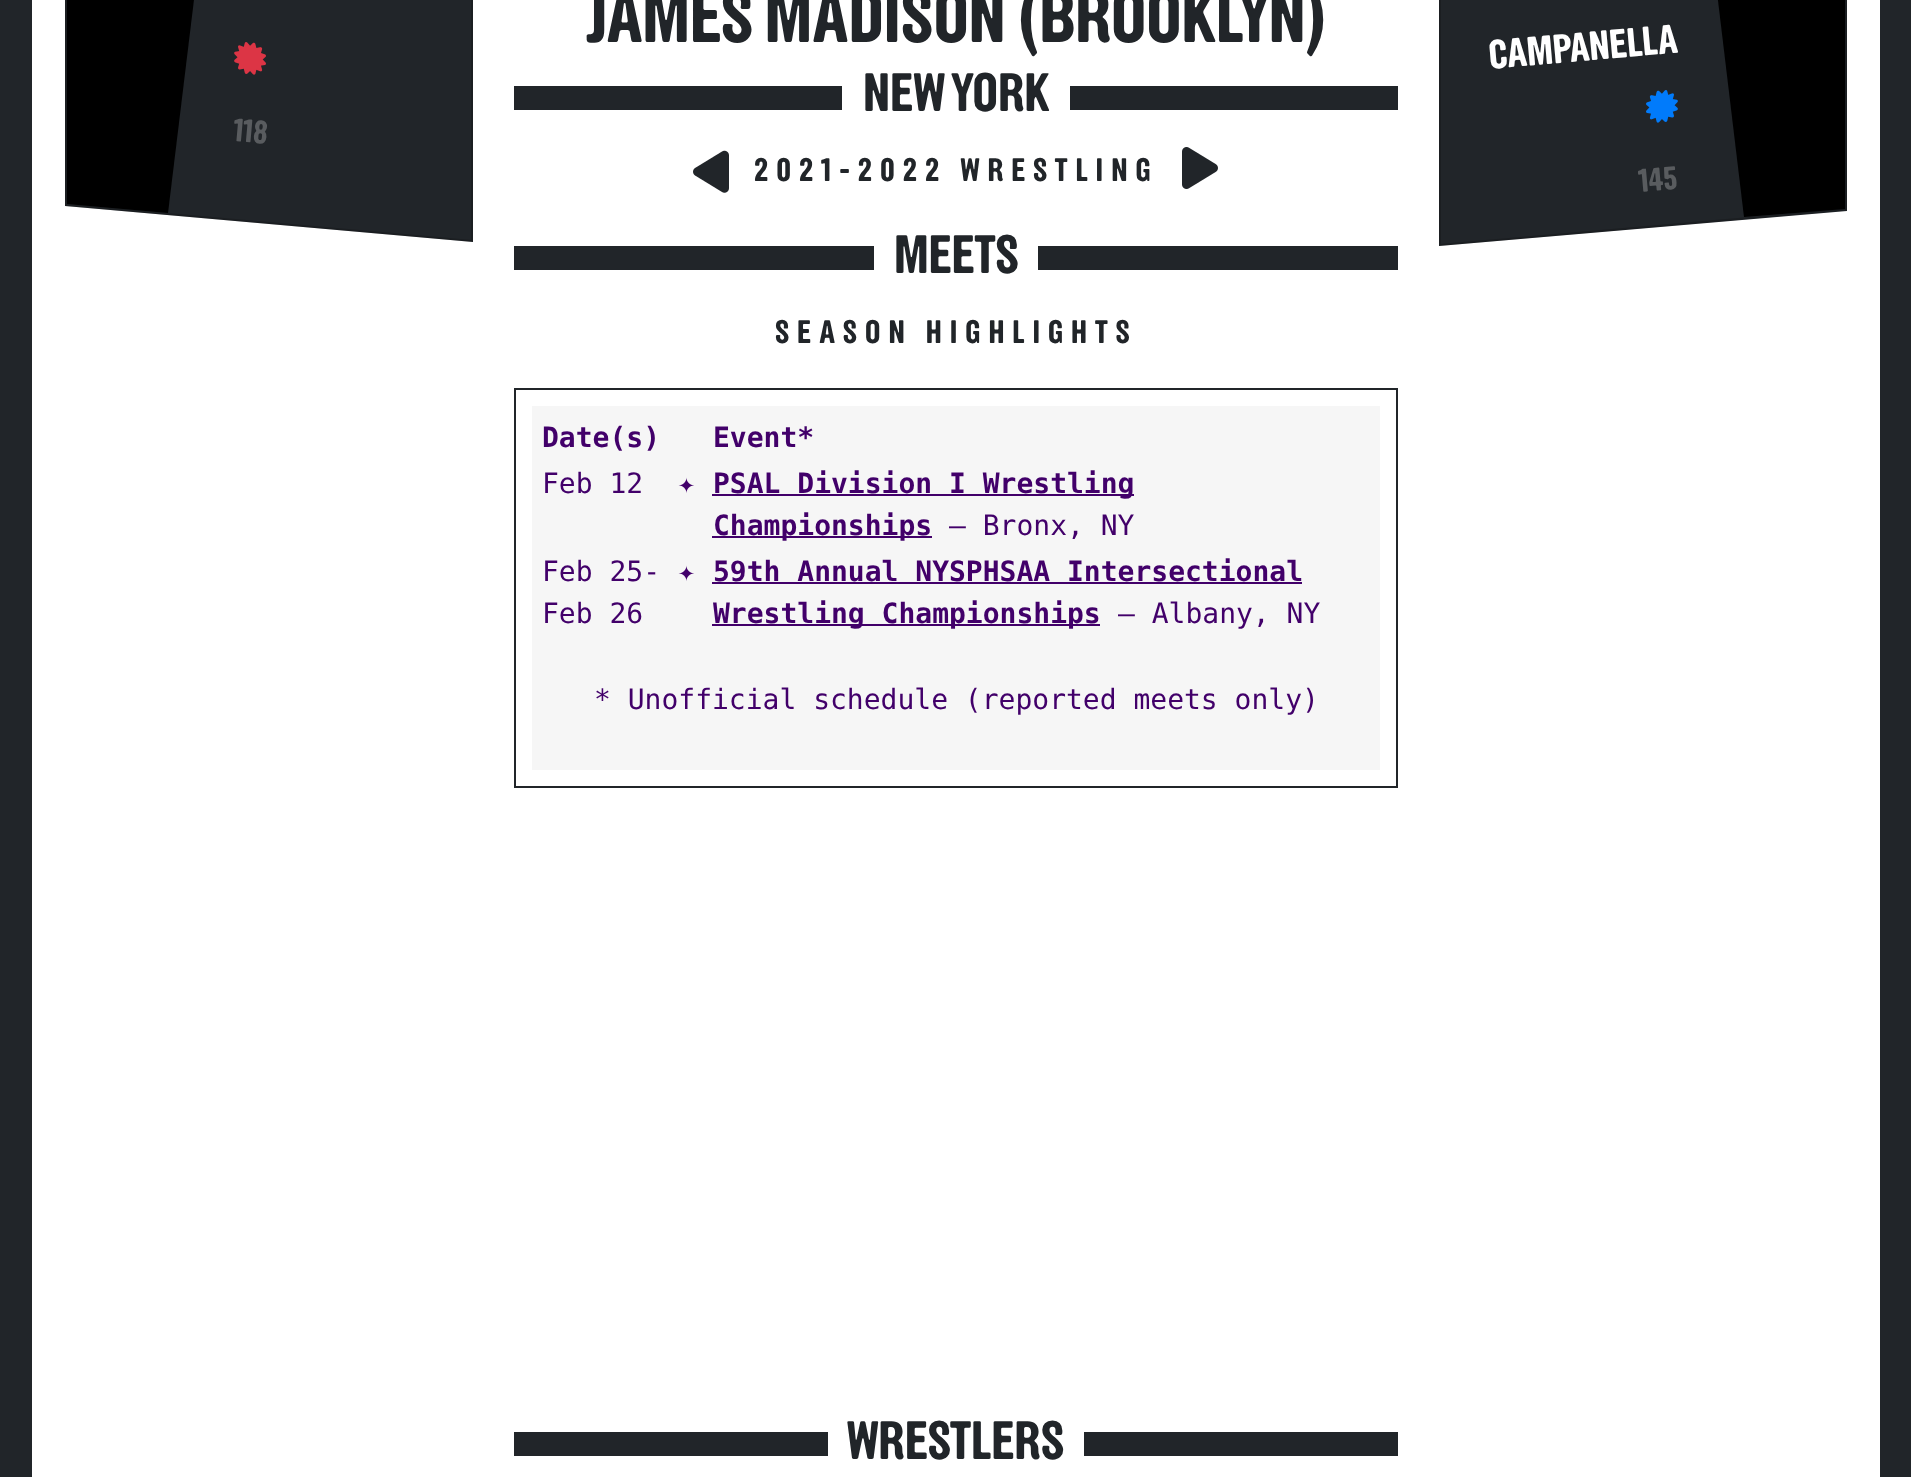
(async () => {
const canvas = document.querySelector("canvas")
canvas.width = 1911
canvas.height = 1477
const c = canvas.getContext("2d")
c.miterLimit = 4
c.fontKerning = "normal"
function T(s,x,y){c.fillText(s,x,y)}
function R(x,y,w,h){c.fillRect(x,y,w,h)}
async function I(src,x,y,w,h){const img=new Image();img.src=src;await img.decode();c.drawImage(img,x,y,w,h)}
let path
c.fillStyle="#fff"
R(0,0,1911,1477)
c.strokeStyle="#212529"
c.lineWidth=32
c.strokeRect(16,-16,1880,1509)
c.fillStyle="#212529"
path = new Path2D("M65-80l408 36v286l-408-36z")
c.fill(path)
path = new Path2D("M66-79l406 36v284l-406-36z")
c.strokeStyle="#0000002e"
c.lineWidth=2
c.stroke(path)
c.fillStyle="#000"
path = new Path2D("M202-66l-135-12v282l101 9z")
c.fill(path)
await I("1.png",234,42,32,33)
c.font="bold 32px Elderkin"
c.fillStyle="#595c5f"
c.save()
c.translate(233,141)
c.rotate(5 * Math.PI / 180)
c.fillText("118",0,0)
c.restore()
c.font="bold 72.75px Elderkin"
c.fillStyle="#212529"
T("JAMES MADISON (BROOKLYN)",587,42)
R(514,86,328,24)
c.font="bold 53px Elderkin"
T("NEW YORK",863,111)
R(1070,86,328,24)
await I("2.png",693,150,36,43)
c.letterSpacing="8px"
c.font="bold 32px Elderkin"
T("2021-2022 WRESTLING",754,181)
await I("3.png",1182,147,36,42)
R(514,246,360,24)
c.letterSpacing="0px"
c.font="bold 53px Elderkin"
T("MEETS",894,273)
R(1038,246,360,24)
c.letterSpacing="8px"
c.font="bold 32px Elderkin"
T("SEASON HIGHLIGHTS",775,343)
c.strokeStyle="#212529"
c.strokeRect(515,389,882,398)
c.fillStyle="#f6f6f6"
R(532,406,848,364)
c.letterSpacing="0px"
c.font="bold 28px DejaVu Sans Mono"
c.fillStyle="#42006a"
T("Date(s)",542,447)
T("Event*",713,447)
c.font="28px DejaVu Sans Mono"
T("Feb 12",542,493)
T("✦",678,493)
R(712,494,422,2)
c.font="bold 28px DejaVu Sans Mono"
T("PSAL Division I Wrestling",713,493)
R(712,536,220,2)
T("Championships",713,535)
c.font="28px DejaVu Sans Mono"
T("— Bronx, NY",949,535)
T("Feb 25-",542,581)
T("Feb 26",542,623)
T("✦",678,581)
c.font="bold 28px DejaVu Sans Mono"
T("59th Annual NYSPHSAA Intersectional",713,581)
R(712,582,590,2)
R(712,624,388,2)
T("Wrestling Championships",713,623)
c.font="28px DejaVu Sans Mono"
T("— Albany, NY",1118,623)
T("* Unofficial schedule (reported meets only)",594,709)
c.fillStyle="#212529"
R(514,1432,314,24)
c.font="bold 53px Elderkin"
T("WRESTLERS",847,1459)
R(1084,1432,314,24)
path = new Path2D("M1439-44l408-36v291l-408 35z")
c.fill(path)
path = new Path2D("M1440-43l406-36v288.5l-406 35.5z")
c.strokeStyle="#0000002e"
c.stroke(path)
c.font="bold 40px Elderkin"
c.fillStyle="#fff"
c.save()
c.translate(1490,69)
c.rotate(-5 * Math.PI / 180)
c.fillText("CAMPANELLA",0,0)
c.restore()
await I("4.png",1646,90,32,33)
c.font="bold 32px Elderkin"
c.fillStyle="#595c5f"
c.save()
c.translate(1640,192)
c.rotate(-5 * Math.PI / 180)
c.fillText("145",0,0)
c.restore()
c.fillStyle="#000"
path = new Path2D("M1795 213l50-4v-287l-135 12l34 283z")
c.fill(path)
})()
